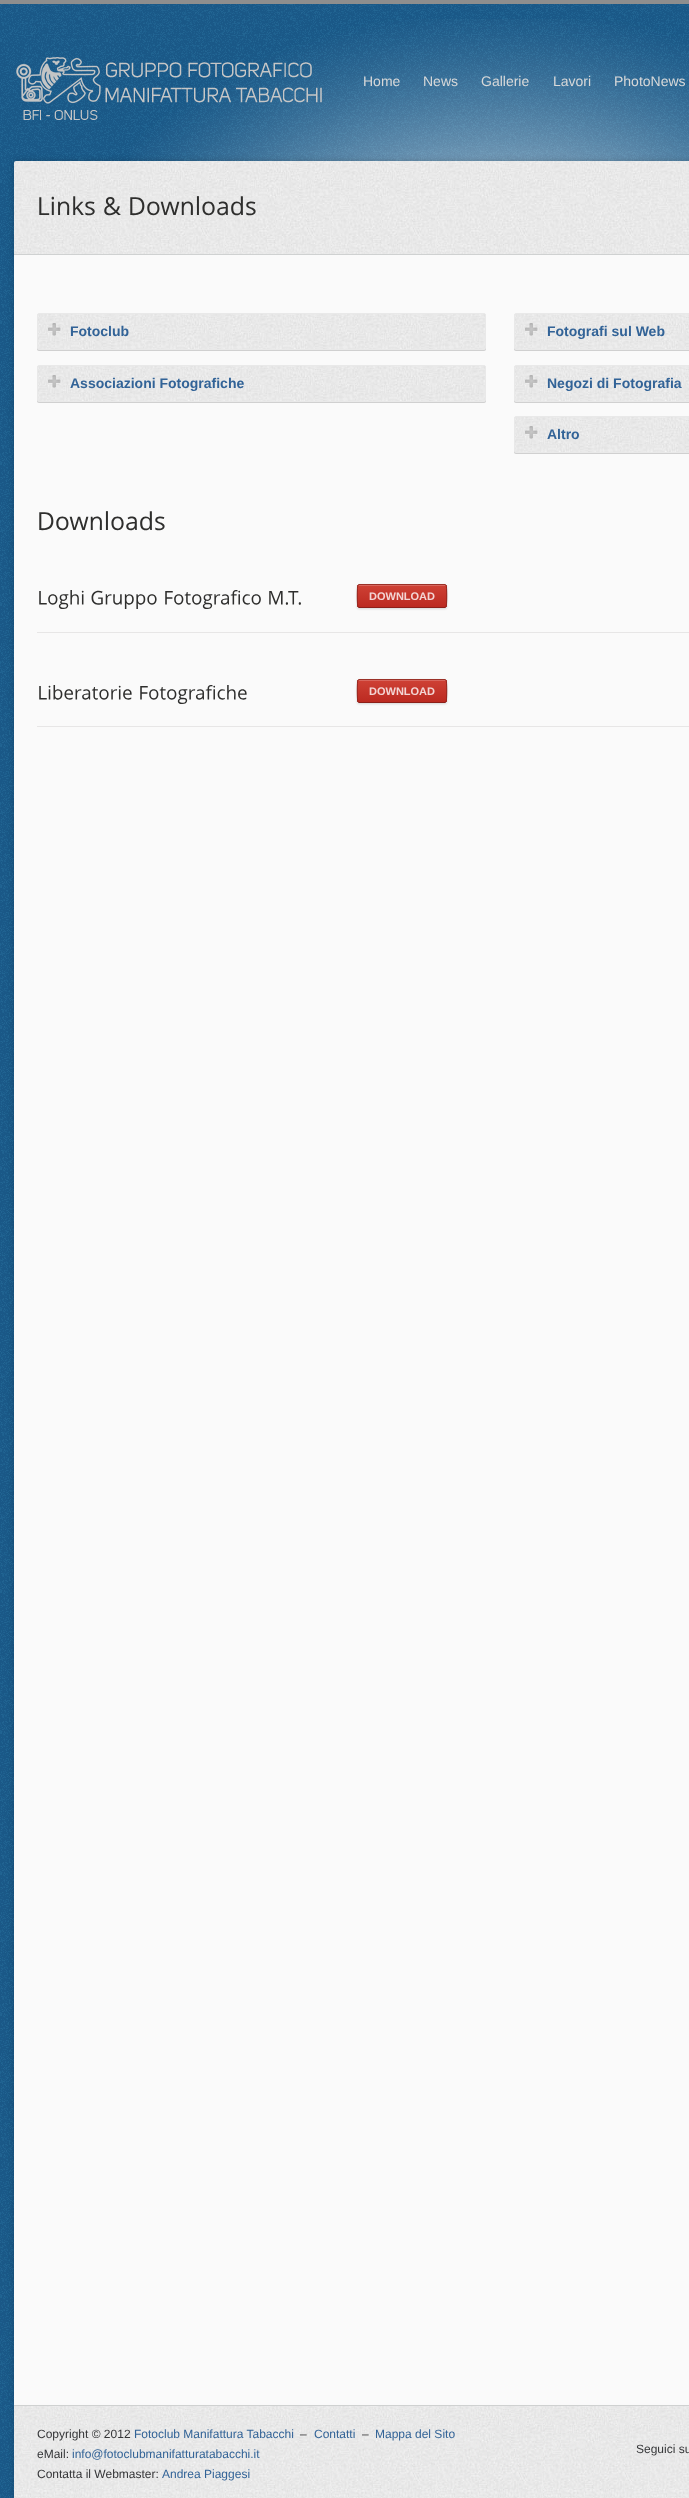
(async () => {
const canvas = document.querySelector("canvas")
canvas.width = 689
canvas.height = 2498
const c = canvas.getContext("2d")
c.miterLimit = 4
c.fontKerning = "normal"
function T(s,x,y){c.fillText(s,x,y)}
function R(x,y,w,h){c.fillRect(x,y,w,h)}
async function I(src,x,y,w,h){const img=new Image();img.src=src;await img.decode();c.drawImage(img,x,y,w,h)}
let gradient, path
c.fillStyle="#fff"
R(0,0,689,2498)
await I("1.png",0,255,14,2243)
c.fillStyle="#8e8e8e"
R(0,0,689,4)
await I("2.png",0,4,689,251)
await I("3.png",130,19,559,142)
await I("4.png",16,57,306,63)
c.font="14px Liberation Sans"
c.fillStyle="#d9d9d9"
T("Home",363,86)
T("News",423,86)
T("Gallerie",481,86)
T("Lavori",553,86)
T("PhotoNews",614,86)
c.save()
c.beginPath()
c.rect(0,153,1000,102)
c.clip()
c.fillStyle="#00000033"
c.filter="blur(3px)"
c.beginPath()
c.roundRect(14,161,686,99,2)
c.fill()
c.filter="none"
c.restore()
await I("5.png",14,161,675,93)
c.fillStyle="#cfd1d1"
R(14,254,675,1)
await I("6.png",39,196,56,20)
await I("7.png",104,197,17,19)
await I("8.png",130,196,126,20)
c.save()
c.beginPath()
c.rect(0,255,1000,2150)
c.clip()
c.fillStyle="#00000033"
c.filter="blur(3px)"
c.beginPath()
c.rect(14,250,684,2155)
c.fill()
c.filter="none"
c.restore()
c.fillStyle="#fafafa"
R(14,255,675,2150)
c.fillStyle="#0000002b"
c.filter="blur(0.5px)"
c.beginPath()
c.roundRect(37,314,449,37,2)
c.fill()
c.filter="none"
c.beginPath()
c.roundRect(37.5,313.5,448,36,1.5)
c.strokeStyle="#e9e9e9"
c.stroke()
await I("9.png",38,314,447,35)
await I("10.png",48,323,13,13)
c.font="bold 14px Liberation Sans"
c.fillStyle="#326397"
T("Fotoclub",70,336)
c.fillStyle="#0000002b"
c.filter="blur(0.5px)"
c.beginPath()
c.roundRect(37,366,449,37,2)
c.fill()
c.filter="none"
c.beginPath()
c.roundRect(37.5,365.5,448,36,1.5)
c.stroke()
await I("9.png",38,366,447,35)
await I("10.png",48,375,13,13)
c.fillStyle="#326397"
T("Associazioni Fotografiche",70,388)
c.fillStyle="#0000002b"
c.filter="blur(0.5px)"
c.beginPath()
c.roundRect(514,314,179,37,2)
c.fill()
c.filter="none"
c.beginPath()
c.roundRect(514.5,313.5,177,36,1.5)
c.stroke()
await I("11.png",515,314,174,35)
await I("10.png",525,323,13,13)
c.fillStyle="#326397"
T("Fotografi sul Web",547,336)
c.fillStyle="#0000002b"
c.filter="blur(0.5px)"
c.beginPath()
c.roundRect(514,366,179,37,2)
c.fill()
c.filter="none"
c.beginPath()
c.roundRect(514.5,365.5,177,36,1.5)
c.stroke()
await I("11.png",515,366,174,35)
await I("10.png",525,375,13,13)
c.fillStyle="#326397"
T("Negozi di Fotografia",547,388)
c.fillStyle="#0000002b"
c.filter="blur(0.5px)"
c.beginPath()
c.roundRect(514,417,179,37,2)
c.fill()
c.filter="none"
c.beginPath()
c.roundRect(514.5,416.5,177,36,1.5)
c.stroke()
await I("11.png",515,417,174,35)
await I("10.png",525,426,13,13)
c.fillStyle="#326397"
T("Altro",547,439)
await I("12.png",39,511,126,20)
await I("13.png",39,590,45,19)
await I("14.png",91,590,66,19)
await I("15.png",165,590,96,19)
await I("16.png",269,591,32,14)
c.fillStyle="#00000026"
c.filter="blur(1px)"
c.beginPath()
c.roundRect(357,585,90,24,2)
c.fill()
c.filter="none"
c.save()
c.beginPath()
c.roundRect(357,584,90,24,2)
c.clip()
gradient = c.createLinearGradient(402,585,402,607)
gradient.addColorStop(0,"#ce4135")
gradient.addColorStop(1,"#bc2a21")
c.fillStyle = gradient
R(357,585,90,22)
c.restore()
c.fillStyle="#d8665d"
path = new Path2D("M359 586h86c1 0 1 0 1 1c0-1 0-2-1-2h-86c-1 0-1 1-1 2c0-1 0-1 1-1z")
c.fill(path)
path = new Path2D("M358 585l1-.5h86l1 .5")
c.strokeStyle="#9b3128"
c.stroke(path)
path = new Path2D("M446 585c1 1 1 21 0 22")
c.strokeStyle="#942821"
c.stroke(path)
path = new Path2D("M446 607l-1 .5h-86l-1-.5")
c.strokeStyle="#8d1f19"
c.stroke(path)
path = new Path2D("M358 607c-1-1-1-21 0-22")
c.strokeStyle="#942821"
c.stroke(path)
c.font="bold 11px Liberation Sans"
c.fillStyle="#f3d5d4"
T("DOWNLOAD",369,600)
c.fillStyle="#e7e6e6"
R(37,632,652,1)
await I("17.png",39,685,93,15)
await I("18.png",140,685,107,19)
c.fillStyle="#00000026"
c.filter="blur(1px)"
c.beginPath()
c.roundRect(357,680,90,24,2)
c.fill()
c.filter="none"
c.save()
c.beginPath()
c.roundRect(357,679,90,24,2)
c.clip()
gradient = c.createLinearGradient(402,680,402,702)
gradient.addColorStop(0,"#ce4135")
gradient.addColorStop(1,"#bc2a21")
c.fillStyle = gradient
R(357,680,90,22)
c.restore()
c.fillStyle="#d8665d"
path = new Path2D("M359 681h86c1 0 1 0 1 1c0-1 0-2-1-2h-86c-1 0-1 1-1 2c0-1 0-1 1-1z")
c.fill(path)
path = new Path2D("M358 680l1-.5h86l1 .5")
c.strokeStyle="#9b3128"
c.stroke(path)
path = new Path2D("M446 680c1 1 1 21 0 22")
c.strokeStyle="#942821"
c.stroke(path)
path = new Path2D("M446 702l-1 .5h-86l-1-.5")
c.strokeStyle="#8d1f19"
c.stroke(path)
path = new Path2D("M358 702c-1-1-1-21 0-22")
c.strokeStyle="#942821"
c.stroke(path)
c.fillStyle="#f3d5d4"
T("DOWNLOAD",369,695)
c.fillStyle="#e7e6e6"
R(37,726,652,1)
c.save()
c.beginPath()
c.rect(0,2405,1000,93)
c.clip()
c.fillStyle="#00000033"
c.filter="blur(3px)"
c.beginPath()
c.rect(14,2405,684,93)
c.fill()
c.filter="none"
c.restore()
await I("19.png",14,2406,675,92)
c.fillStyle="#cfd1d1"
R(14,2405,675,1)
c.font="12px Liberation Sans"
c.fillStyle="#353638"
T("Copyright © 2012",37,2438)
c.fillStyle="#326397"
T("Fotoclub Manifattura Tabacchi",134,2438)
c.fillStyle="#353638"
T("–",300,2438)
c.fillStyle="#326397"
T("Contatti",314,2438)
c.fillStyle="#353638"
T("–",362,2438)
c.fillStyle="#326397"
T("Mappa del Sito",375,2438)
c.fillStyle="#353638"
T("eMail:",37,2458)
c.fillStyle="#326397"
T("info@fotoclubmanifatturatabacchi.it",72,2458)
c.fillStyle="#353638"
T("Contatta il Webmaster:",37,2478)
c.fillStyle="#326397"
T("Andrea Piaggesi",162,2478)
c.fillStyle="#353638"
T("Seguici su",636,2453)
})()
